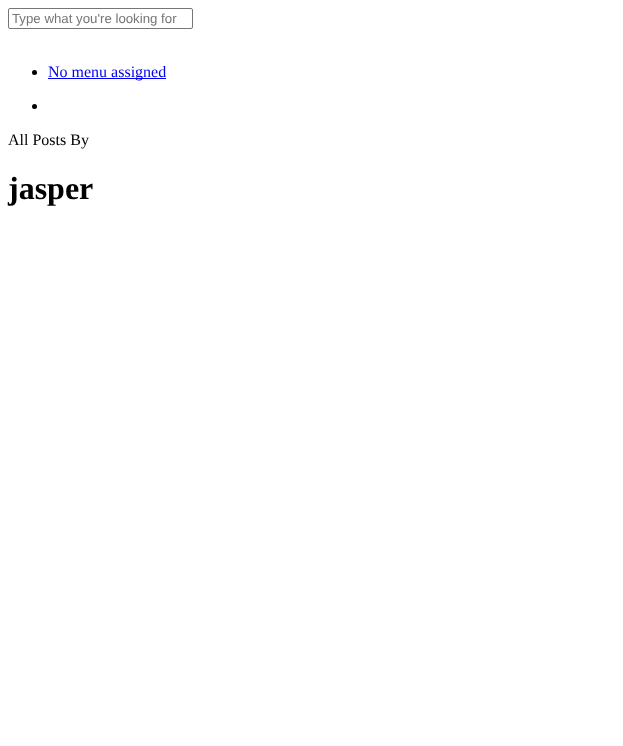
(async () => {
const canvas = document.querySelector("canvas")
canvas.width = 623
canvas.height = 746
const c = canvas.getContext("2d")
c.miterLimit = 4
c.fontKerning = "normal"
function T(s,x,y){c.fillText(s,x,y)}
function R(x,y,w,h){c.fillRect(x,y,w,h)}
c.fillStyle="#fff"
R(0,0,623,746)
c.beginPath()
c.roundRect(8.5,8.5,184,20,1.5)
c.strokeStyle="#767676"
c.stroke()
c.font="13.25px Liberation Sans"
c.fillStyle="#757575"
T("Type what you're looking for",12,23)
c.fillStyle="#000"
c.beginPath()
c.arc(34.5,72.5,2.5,0,7)
c.fill()
c.fillStyle="#00e"
R(48,78,118,1)
c.font="16px Liberation Serif"
T("No menu assigned",48,77)
c.fillStyle="#000"
c.beginPath()
c.arc(34.5,106.5,2.5,0,7)
c.fill()
T("All Posts By",8,145)
c.font="bold 32px Liberation Serif"
T("jasper",8,199)
})()
